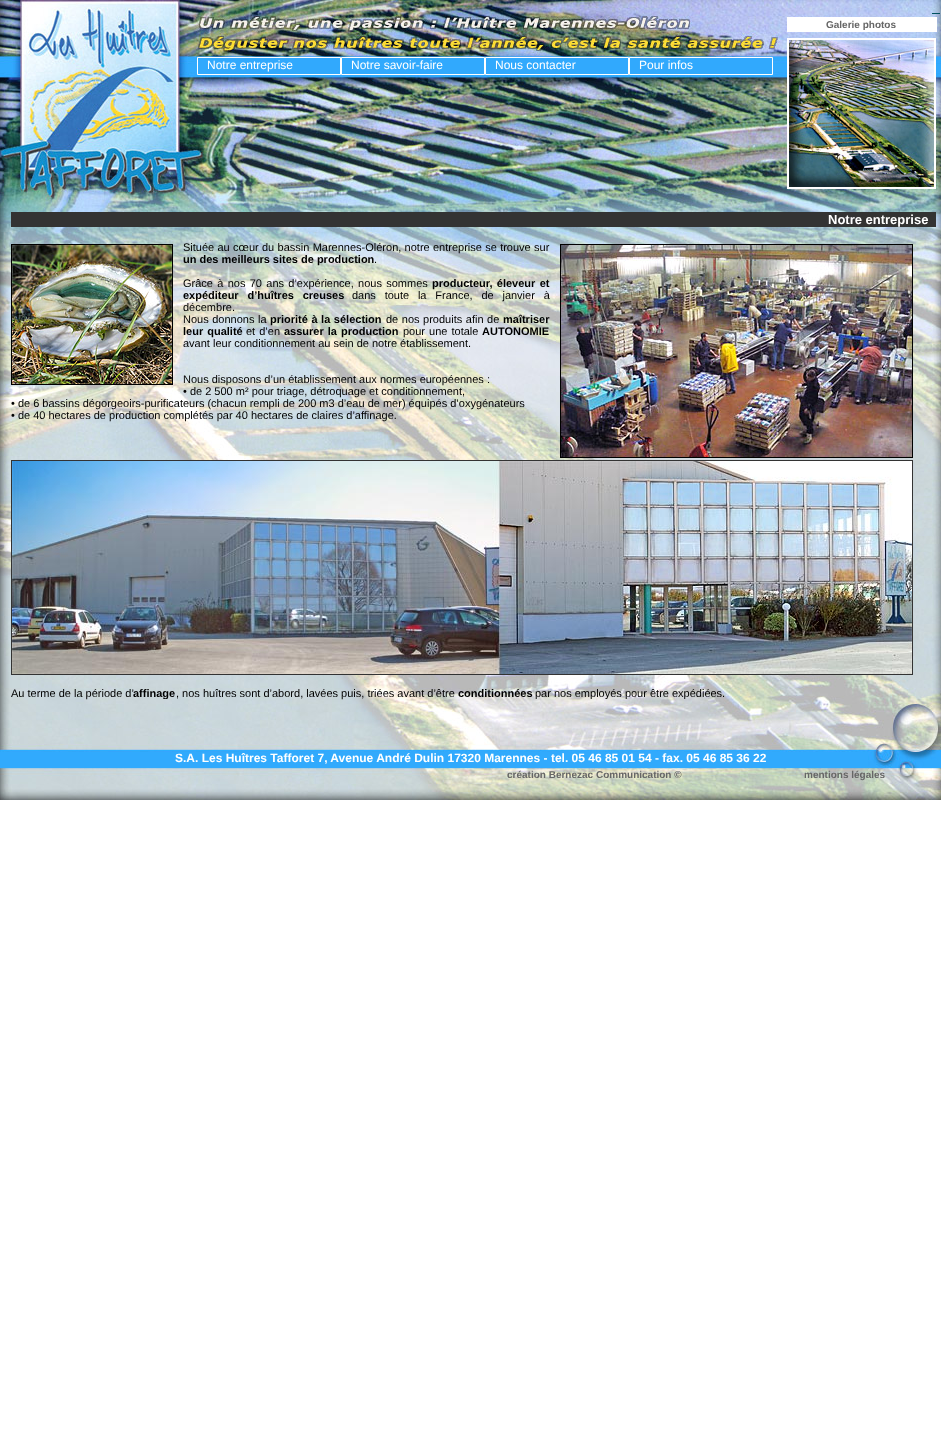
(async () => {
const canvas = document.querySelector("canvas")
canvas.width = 941
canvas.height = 1433
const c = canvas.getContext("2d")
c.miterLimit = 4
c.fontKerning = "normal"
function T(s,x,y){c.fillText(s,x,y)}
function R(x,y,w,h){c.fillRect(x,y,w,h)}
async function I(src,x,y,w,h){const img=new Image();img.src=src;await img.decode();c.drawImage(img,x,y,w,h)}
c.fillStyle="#fff"
R(0,0,941,1433)
await I("5.png",0,0,941,800)
R(787,17,150,15)
c.font="bold 10px Liberation Sans"
c.fillStyle="#666"
T("Galerie photos",826,28)
c.fillStyle="#31a9fd"
c.beginPath()
c.rect(197.5,57.5,143,17)
c.fill()
c.strokeStyle="#fff"
c.stroke()
c.font="12px Liberation Sans"
c.fillStyle="#fff"
T("Notre entreprise",207,69)
c.fillStyle="#31a9fd"
c.beginPath()
c.rect(341.5,57.5,143,17)
c.fill()
c.stroke()
c.fillStyle="#fff"
T("Notre savoir-faire",351,69)
c.fillStyle="#31a9fd"
c.beginPath()
c.rect(485.5,57.5,143,17)
c.fill()
c.stroke()
c.fillStyle="#fff"
T("Nous contacter",495,69)
c.fillStyle="#31a9fd"
c.beginPath()
c.rect(629.5,57.5,143,17)
c.fill()
c.stroke()
c.fillStyle="#fff"
T("Pour infos",639,69)
c.lineWidth=2
c.strokeRect(788,39,147,149)
await I("1.png",789,40,145,147)
c.fillStyle="#333"
R(11,212,925,15)
c.font="bold 13px Liberation Sans"
c.fillStyle="#fff"
T("Notre entreprise",828,224)
c.strokeStyle="#000"
c.lineWidth=1
c.strokeRect(11.5,244.5,161,140)
await I("2.png",12,245,160,139)
c.wordSpacing="0.25px"
c.font="11px Liberation Sans"
c.fillStyle="#000"
T("Située au cœur du bassin Marennes-Oléron, notre entreprise se trouve sur",183,251)
c.strokeRect(560.5,244.5,352,213)
await I("3.png",561,245,351,212)
c.wordSpacing="0px"
c.font="bold 11px Liberation Sans"
T("un des meilleurs sites de production",183,263)
c.font="11px Liberation Sans"
T(".",374,263)
c.wordSpacing="1.25px"
T("Grâce à nos 70 ans d’expérience, nous sommes",183,287)
c.font="bold 11px Liberation Sans"
T("producteur, éleveur et",432,287)
c.wordSpacing="5.75px"
T("expéditeur d’huîtres creuses",183,299)
c.font="11px Liberation Sans"
T("dans toute la France, de janvier à",352,299)
c.wordSpacing="0px"
T("décembre.",183,311)
c.wordSpacing="0.5px"
T("Nous donnons la",183,323)
c.font="bold 11px Liberation Sans"
T("priorité à la sélection",270,323)
c.font="11px Liberation Sans"
T("de nos produits afin de",386,323)
c.wordSpacing="0px"
c.font="bold 11px Liberation Sans"
T("maîtriser",503,323)
c.wordSpacing="1px"
T("leur qualité",183,335)
c.font="11px Liberation Sans"
T("et d’en",246,335)
c.font="bold 11px Liberation Sans"
T("assurer la production",284,335)
c.font="11px Liberation Sans"
T("pour une totale",403,335)
c.wordSpacing="0px"
c.font="bold 11px Liberation Sans"
T("AUTONOMIE",482,335)
c.font="11px Liberation Sans"
T("avant leur conditionnement au sein de notre établissement.",183,347)
T("Nous disposons d’un établissement aux normes européennes :",183,383)
T("• de 2 500 m² pour triage, détroquage et conditionnement,",183,395)
T("• de 6 bassins dégorgeoirs-purificateurs (chacun rempli de 200 m3 d’eau de mer) équipés d’oxygénateurs",11,407)
T("• de 40 hectares de production complétés par 40 hectares de claires d’affinage.",11,419)
c.strokeStyle="#333"
c.strokeRect(11.5,460.5,901,214)
await I("4.png",12,461,900,213)
T("Au terme de la période d’",11,697)
c.save()
c.beginPath()
c.rect(11,229,925,470)
c.clip()
c.font="bold 11px Liberation Sans"
T("affinage",133,697)
c.restore()
T(", nos huîtres sont d’abord, lavées puis, triées avant d’être",176,697)
c.font="bold 11px Liberation Sans"
T("conditionnées",458,697)
c.save()
c.beginPath()
c.rect(11,229,925,470)
c.clip()
c.font="11px Liberation Sans"
T("par nos employés pour être expédiées.",535,697)
c.restore()
c.fillStyle="#00525e"
R(932,13,8,1)
c.font="bold 12px Liberation Sans"
c.fillStyle="#fff"
T("S.A. Les Huîtres Tafforet 7, Avenue André Dulin 17320 Marennes - tel. 05 46 85 01 54 - fax. 05 46 85 36 22",175,762)
c.font="bold 10px Liberation Sans"
c.fillStyle="#666"
T("création Bernezac Communication ©",507,778)
T("mentions légales",804,778)
})()
